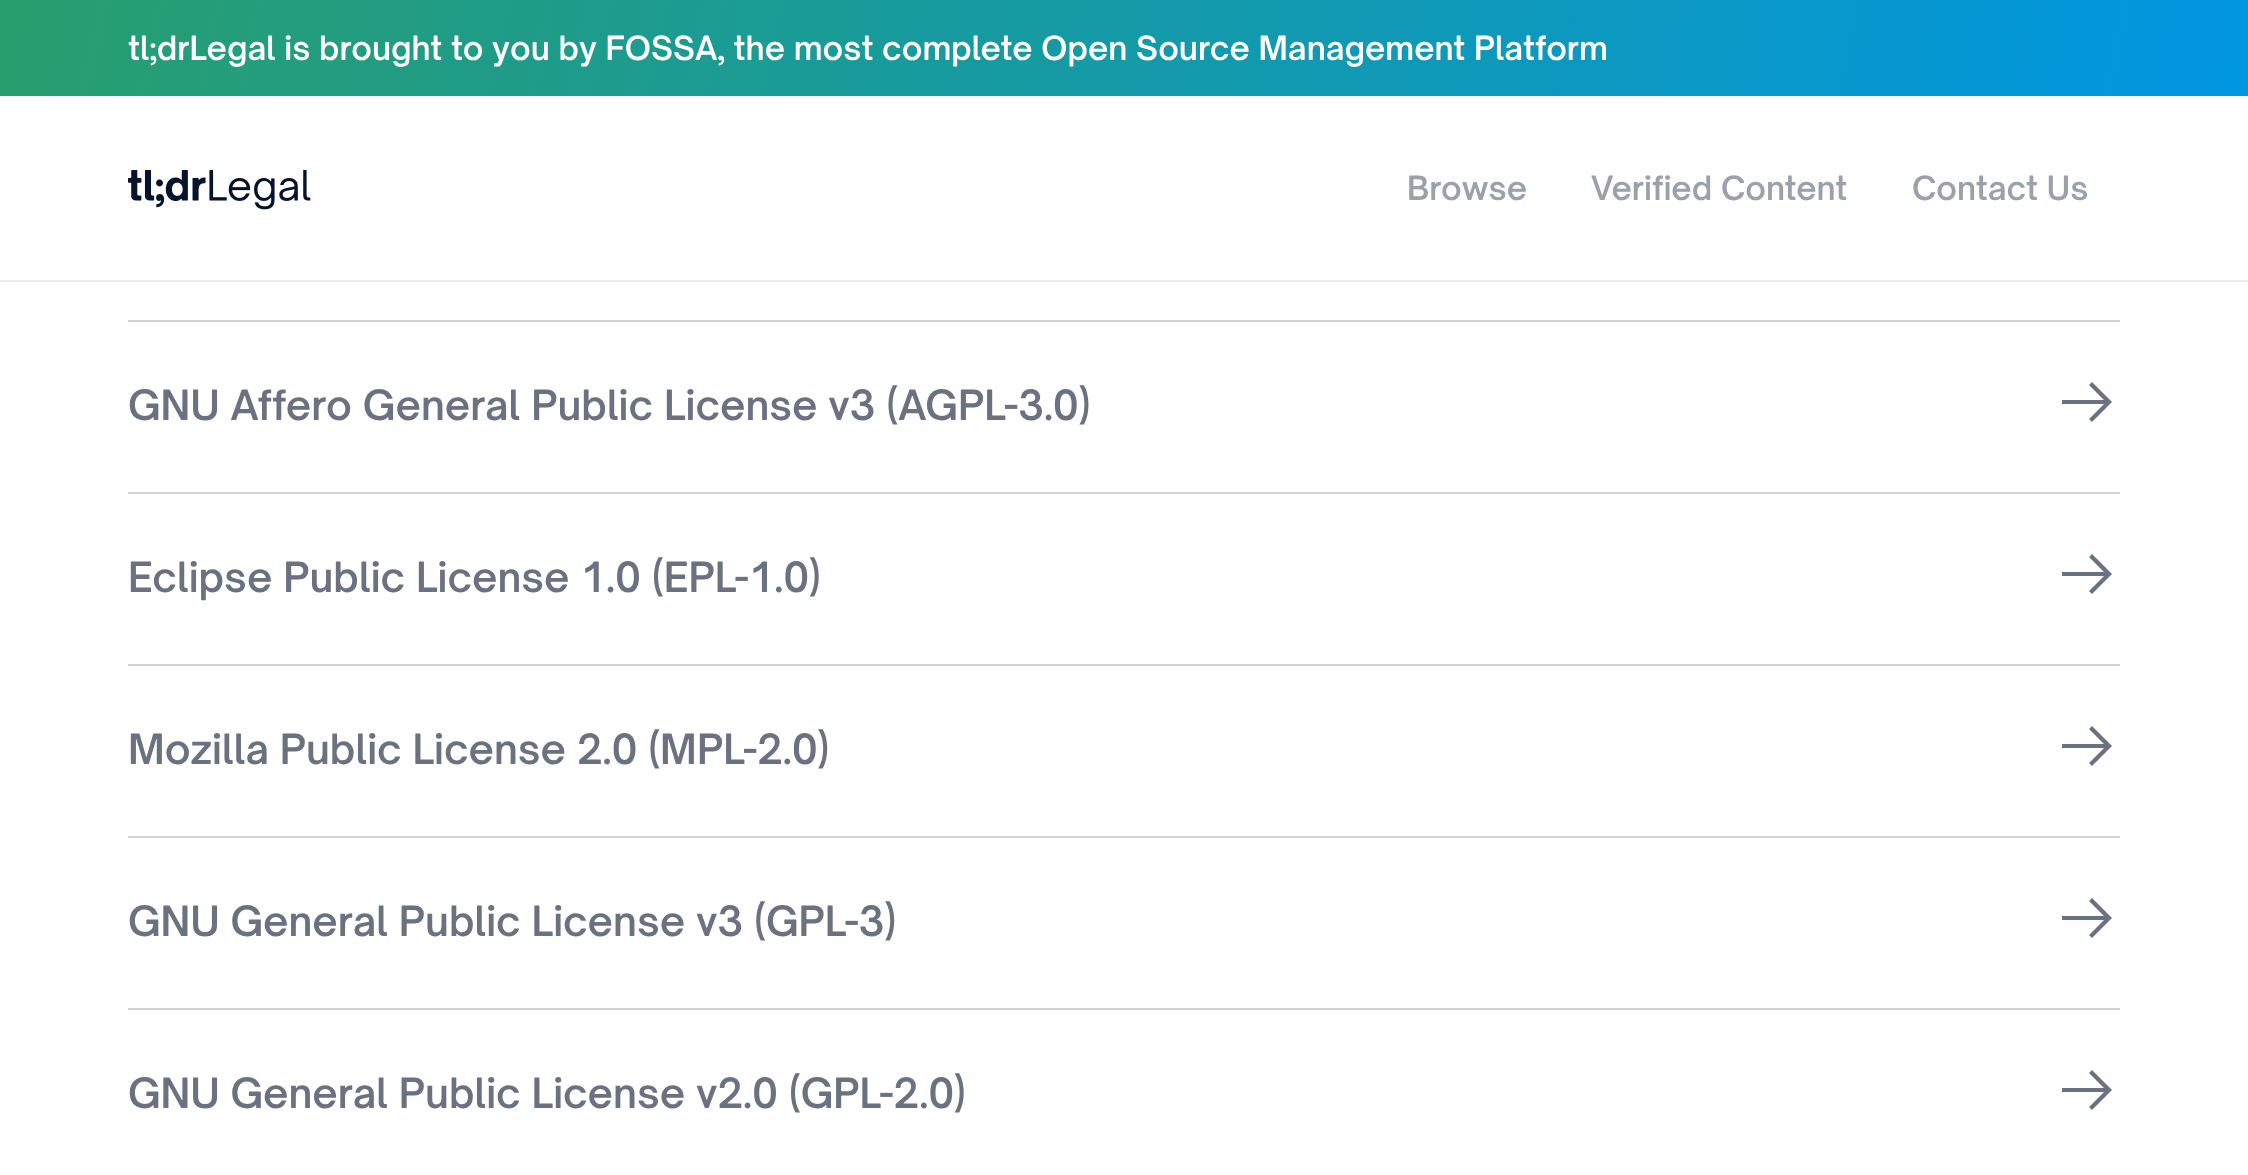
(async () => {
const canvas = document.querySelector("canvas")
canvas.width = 2248
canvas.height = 1175
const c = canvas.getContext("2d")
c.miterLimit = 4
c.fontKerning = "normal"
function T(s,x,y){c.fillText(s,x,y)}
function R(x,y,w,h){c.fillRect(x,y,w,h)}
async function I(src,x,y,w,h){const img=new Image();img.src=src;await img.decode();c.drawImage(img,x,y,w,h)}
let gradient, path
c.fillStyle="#fff"
R(0,0,2248,1175)
c.fillStyle="#ebecee"
R(0,280,2248,2)
gradient = c.createLinearGradient(39,-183,2209,279)
gradient.addColorStop(0,"#289e6d")
gradient.addColorStop(1,"#0096e2")
c.fillStyle = gradient
R(0,0,2248,96)
c.font="600 32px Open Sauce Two"
c.fillStyle="#fff"
T("tl;drLegal is brought to you by FOSSA, the most complete Open Source Management Platform",128,60)
await I("1.png",128,170,183,40)
c.fillStyle="#9ba1ab"
T("Browse",1407,200)
T("Verified Content",1591,200)
T("Contact Us",1912,200)
c.fillStyle="#cdd0d5"
R(128,320,1992,2)
c.font="600 40px Open Sauce Two"
c.fillStyle="#6a7181"
T("GNU Affero General Public License v3 (AGPL-3.0)",128,420)
path = new Path2D("M2092 382l-3 3l15 15h-42v4h42l-15 15l3 3l20-20z")
c.fill(path,"evenodd")
c.fillStyle="#cdd0d5"
R(128,492,1992,2)
c.fillStyle="#6a7181"
T("Eclipse Public License 1.0 (EPL-1.0)",128,592)
path = new Path2D("M2092 554l-3 3l15 15h-42v4h42l-15 15l3 3l20-20z")
c.fill(path,"evenodd")
c.fillStyle="#cdd0d5"
R(128,664,1992,2)
c.fillStyle="#6a7181"
T("Mozilla Public License 2.0 (MPL-2.0)",128,764)
path = new Path2D("M2092 726l-3 3l15 15h-42v4h42l-15 15l3 3l20-20z")
c.fill(path,"evenodd")
c.fillStyle="#cdd0d5"
R(128,836,1992,2)
c.fillStyle="#6a7181"
T("GNU General Public License v3 (GPL-3)",128,936)
path = new Path2D("M2092 898l-3 3l15 15h-42v4h42l-15 15l3 3l20-20z")
c.fill(path,"evenodd")
c.fillStyle="#cdd0d5"
R(128,1008,1992,2)
c.fillStyle="#6a7181"
T("GNU General Public License v2.0 (GPL-2.0)",128,1108)
path = new Path2D("M2092 1070l-3 3l15 15h-42v4h42l-15 15l3 3l20-20z")
c.fill(path,"evenodd")
})()
